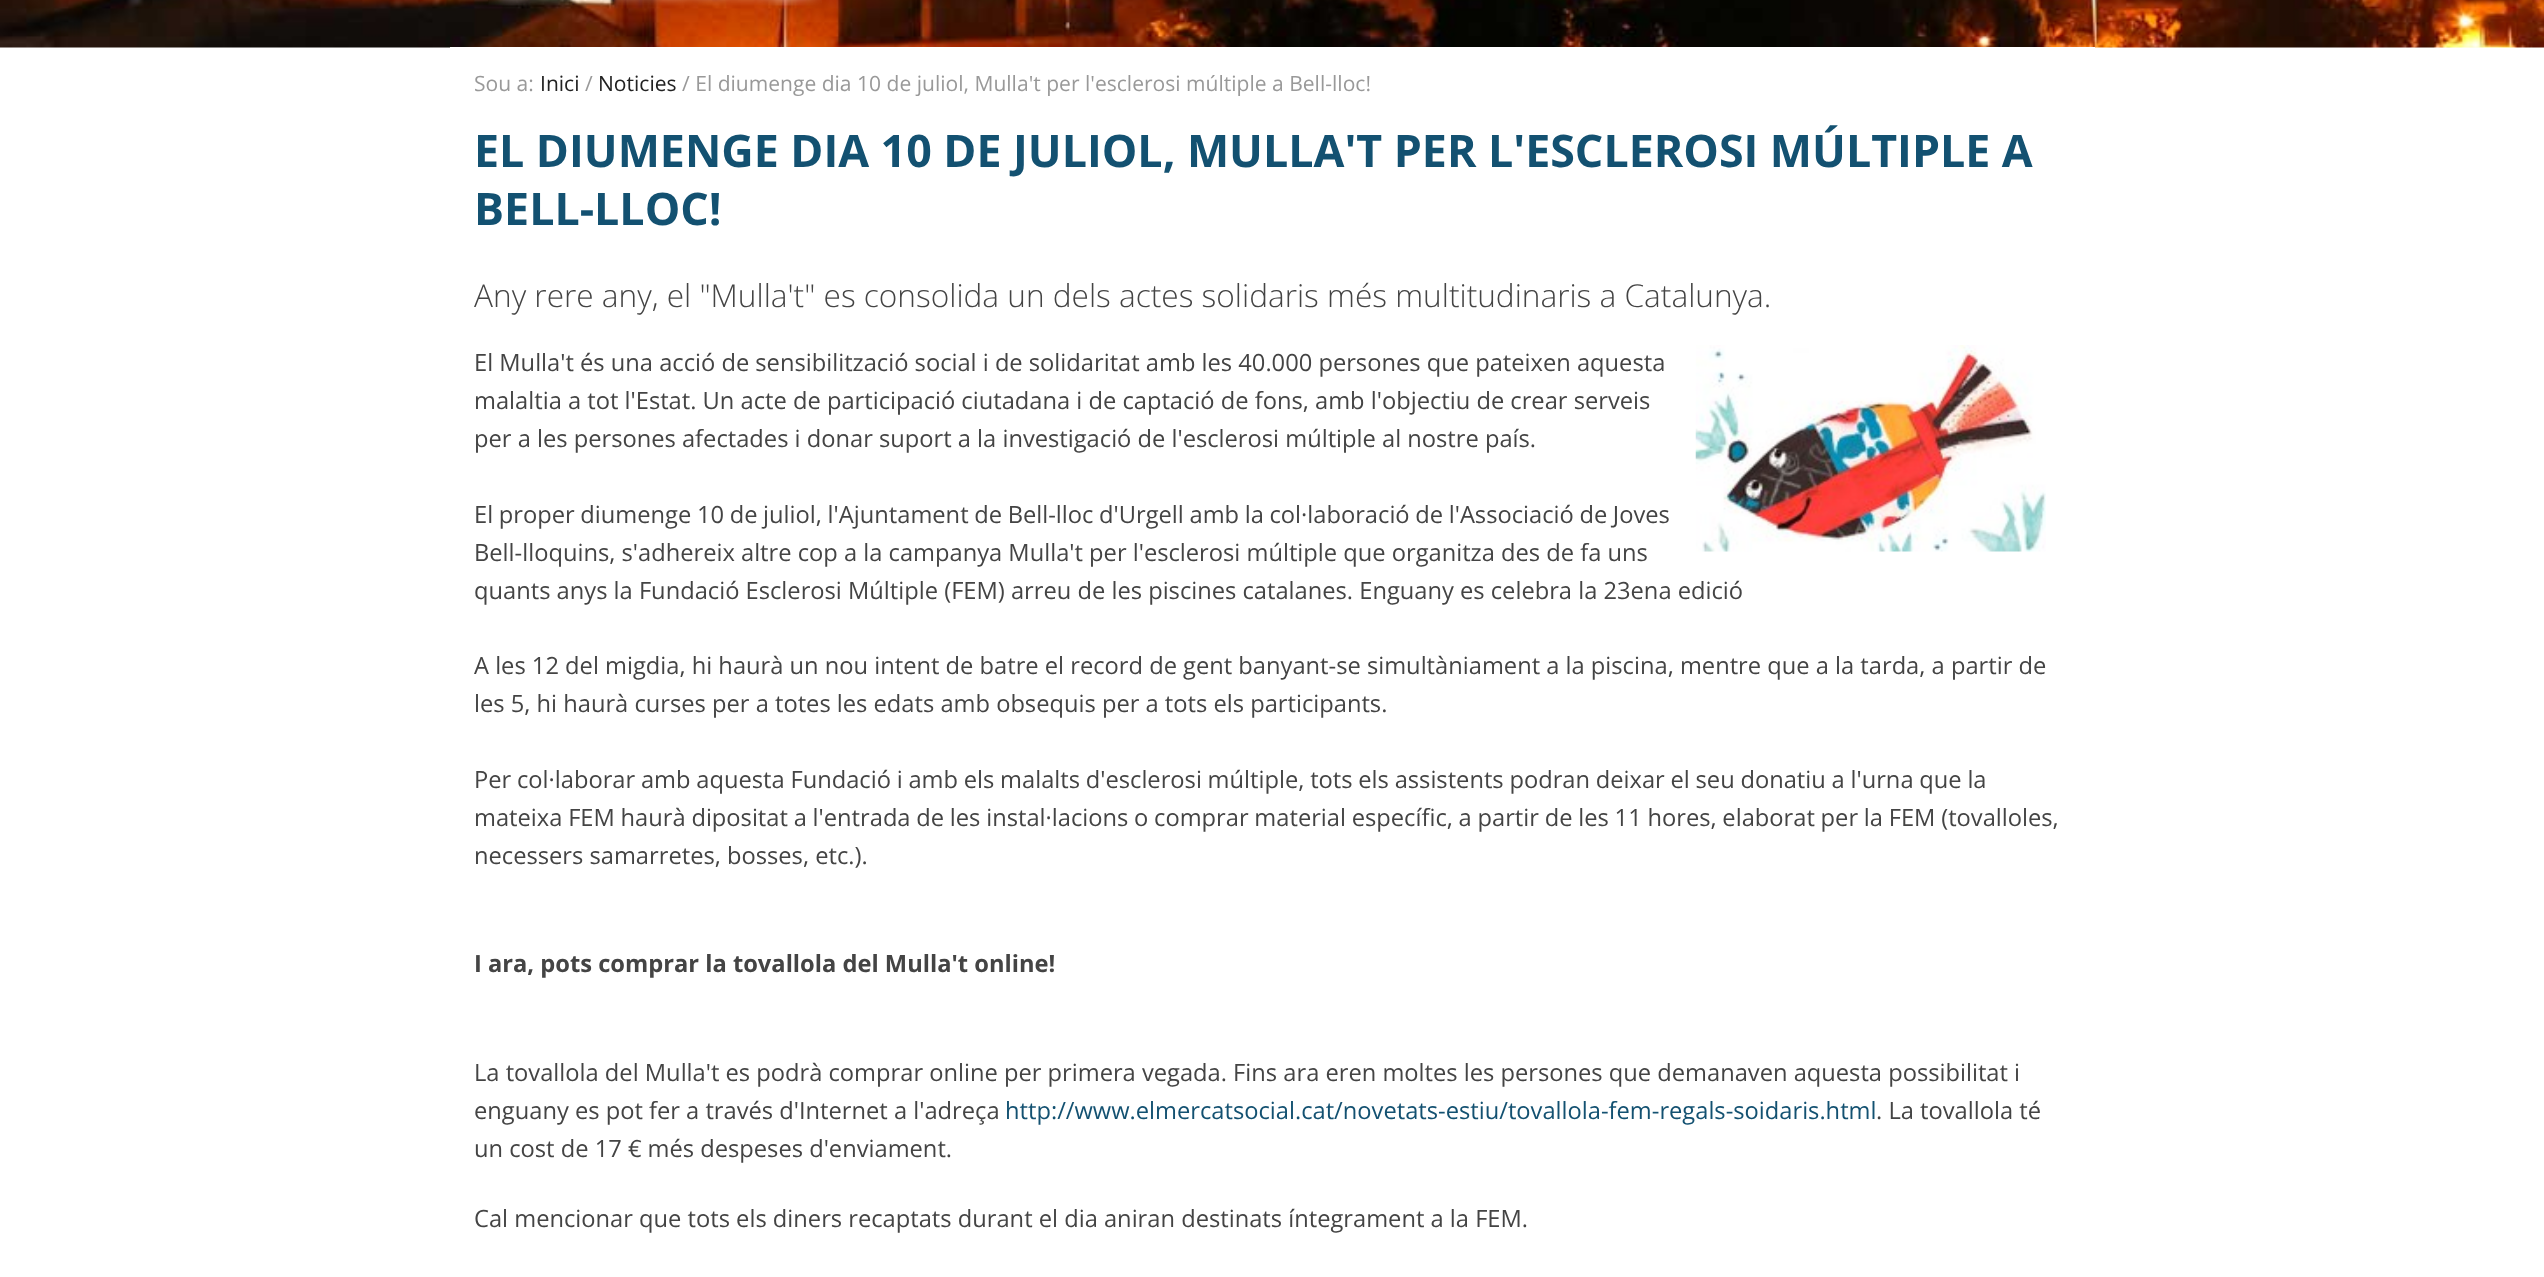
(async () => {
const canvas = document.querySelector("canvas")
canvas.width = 2544
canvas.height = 1277
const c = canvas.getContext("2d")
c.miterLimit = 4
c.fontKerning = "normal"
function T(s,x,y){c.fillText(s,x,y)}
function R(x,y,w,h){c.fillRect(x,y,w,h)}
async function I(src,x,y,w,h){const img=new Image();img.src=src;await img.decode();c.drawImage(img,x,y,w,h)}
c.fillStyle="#fff"
R(0,0,2544,1277)
await I("1.png",0,0,2544,48)
await I("2.png",489,0,333,6)
R(450,47,1645,1)
c.font="21.05px Open Sans"
c.fillStyle="#999"
T("Sou a:",474,91)
c.fillStyle="#222"
T("Inici",540,91)
c.fillStyle="#999"
T("/",585,91)
c.fillStyle="#222"
T("Noticies",598,91)
c.fillStyle="#999"
T("/ El diumenge dia 10 de juliol, Mulla't per l'esclerosi múltiple a Bell-lloc!",682,91)
c.wordSpacing="-0.1px"
c.font="bold 44.75px Open Sans"
c.fillStyle="#135171"
T("EL DIUMENGE DIA 10 DE JULIOL, MULLA'T PER L'ESCLEROSI MÚLTIPLE A",474,167)
c.wordSpacing="0px"
T("BELL-LLOC!",474,225)
c.font="300 31.6px Open Sans"
c.fillStyle="#444"
T("Any rere any, el \"Mulla't\" es consolida un dels actes solidaris més multitudinaris a Catalunya.",474,307)
await I("3.png",1695,345,351,207)
c.font="23.7px Open Sans"
T("El Mulla't és una acció de sensibilització social i de solidaritat amb les 40.000 persones que pateixen aquesta",474,371)
T("malaltia a tot l'Estat. Un acte de participació ciutadana i de captació de fons, amb l'objectiu de crear serveis",474,409)
T("per a les persones afectades i donar suport a la investigació de l'esclerosi múltiple al nostre país.",474,447)
c.wordSpacing="-0.5px"
T("El proper diumenge 10 de juliol, l'Ajuntament de Bell-lloc d'Urgell amb la col·laboració de l'Associació de Joves",474,523)
c.wordSpacing="0px"
T("Bell-lloquins, s'adhereix altre cop a la campanya Mulla't per l'esclerosi múltiple que organitza des de fa uns",474,561)
T("quants anys la Fundació Esclerosi Múltiple (FEM) arreu de les piscines catalanes. Enguany es celebra la 23ena edició",474,599)
T("A les 12 del migdia, hi haurà un nou intent de batre el record de gent banyant-se simultàniament a la piscina, mentre que a la tarda, a partir de",474,674)
T("les 5, hi haurà curses per a totes les edats amb obsequis per a tots els participants.",474,712)
c.wordSpacing="-0.4px"
T("Per col·laborar amb aquesta Fundació i amb els malalts d'esclerosi múltiple, tots els assistents podran deixar el seu donatiu a l'urna que la",474,788)
T("mateixa FEM haurà dipositat a l'entrada de les instal·lacions o comprar material específic, a partir de les 11 hores, elaborat per la FEM (tovalloles,",474,826)
c.wordSpacing="0px"
T("necessers samarretes, bosses, etc.).",474,864)
c.font="bold 23.7px Open Sans"
T("I ara, pots comprar la tovallola del Mulla't online!",474,972)
c.font="23.7px Open Sans"
T("La tovallola del Mulla't es podrà comprar online per primera vegada. Fins ara eren moltes les persones que demanaven aquesta possibilitat i",474,1081)
T("enguany es pot fer a través d'Internet a l'adreça",474,1119)
c.fillStyle="#135171"
T("http://www.elmercatsocial.cat/novetats-estiu/tovallola-fem-regals-soidaris.html",1005,1119)
c.fillStyle="#444"
T(". La tovallola té",1876,1119)
T("un cost de 17 € més despeses d'enviament.",474,1157)
T("Cal mencionar que tots els diners recaptats durant el dia aniran destinats íntegrament a la FEM.",474,1227)
})()
